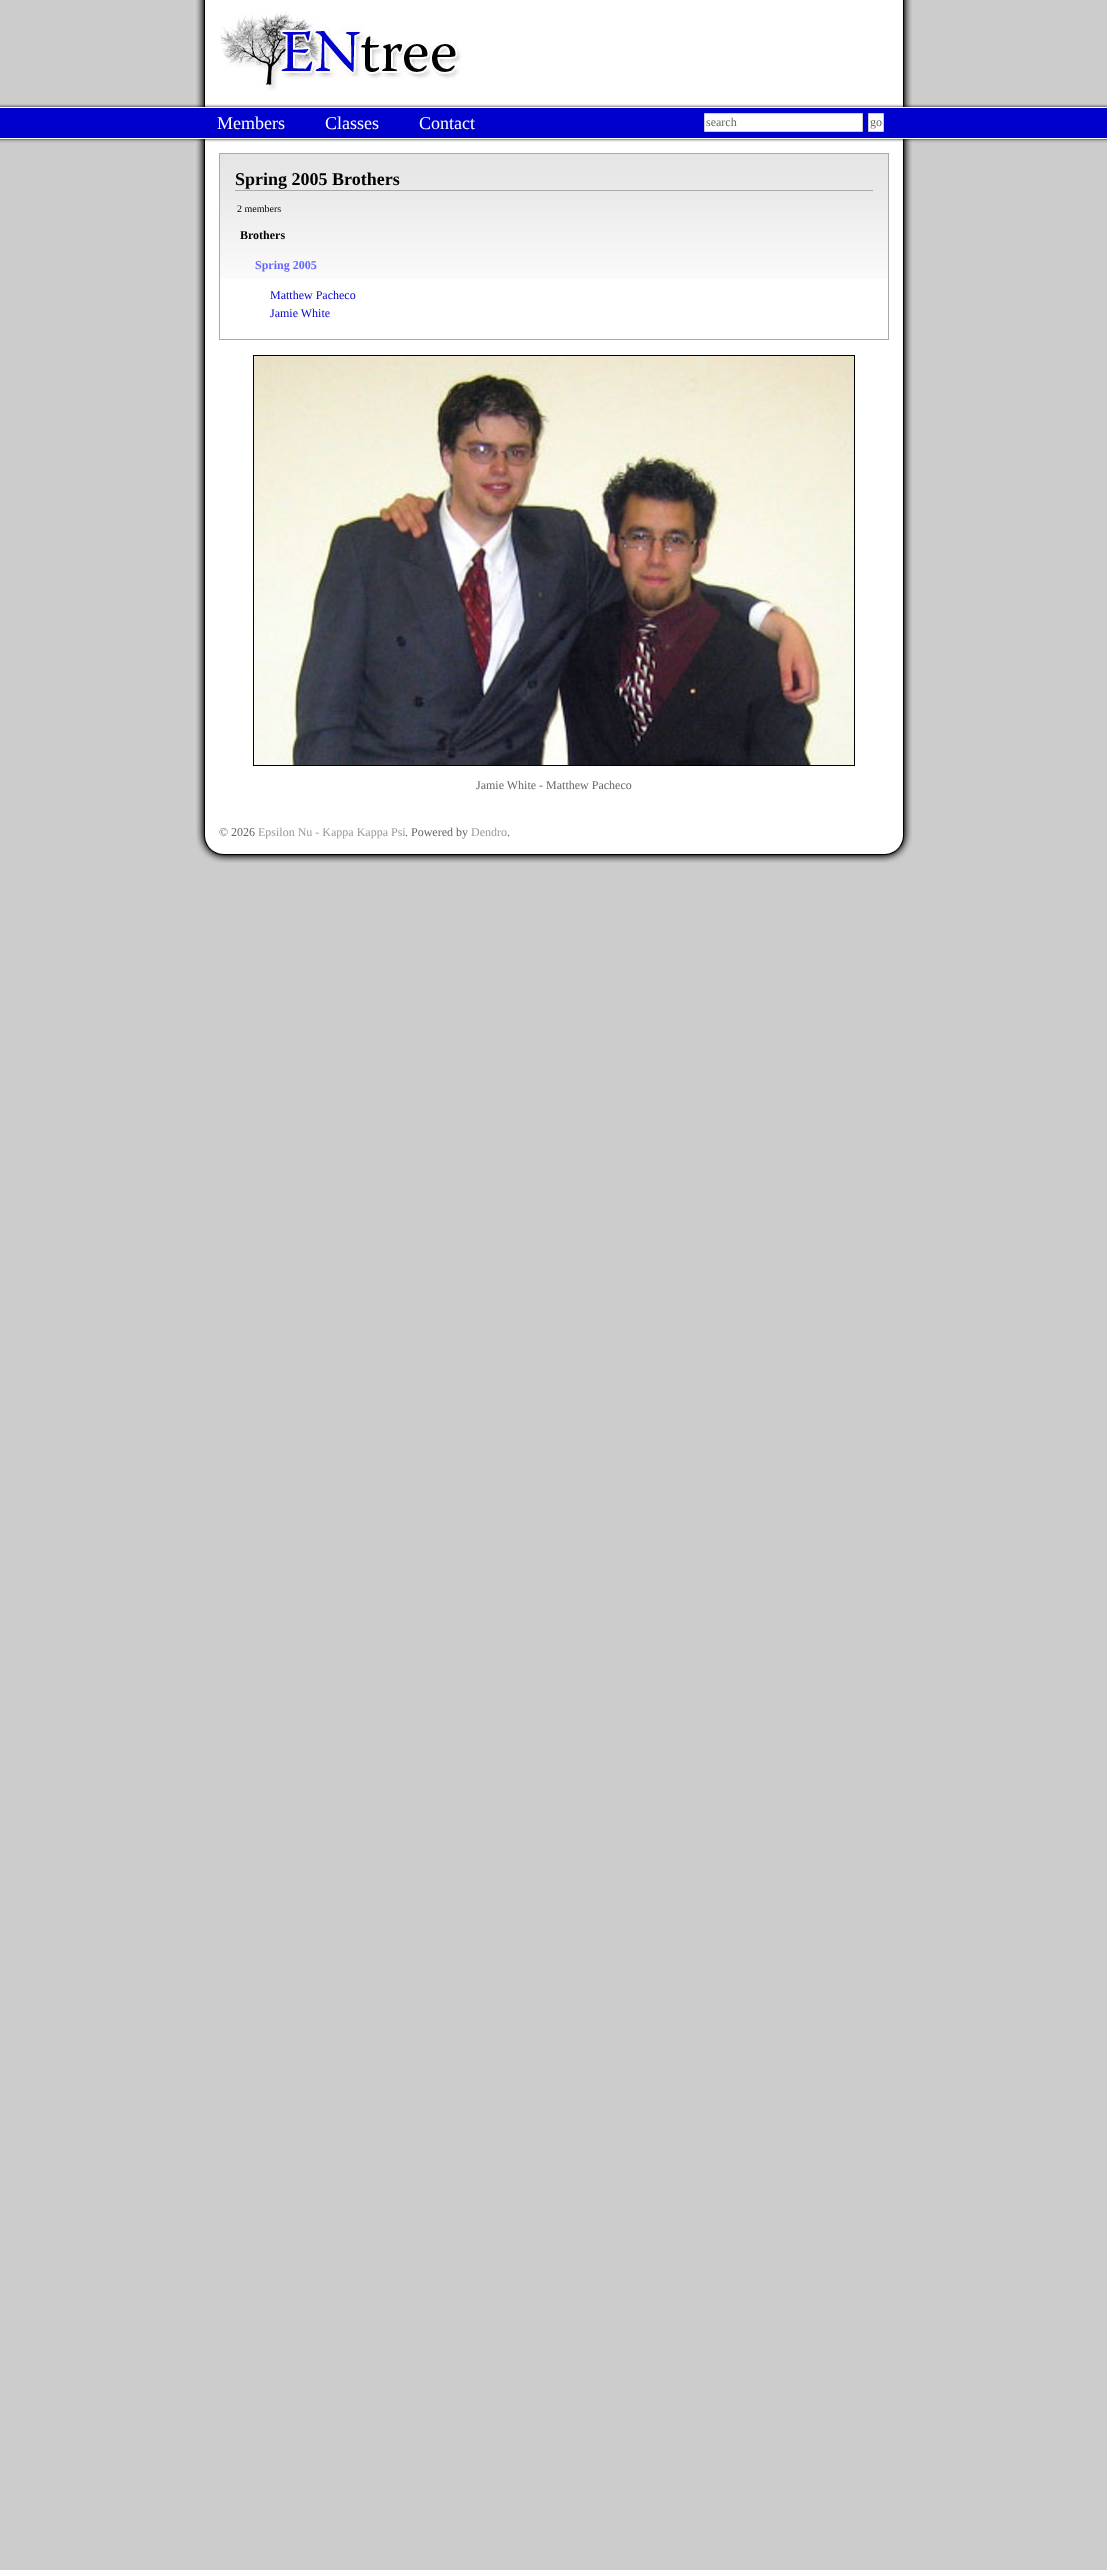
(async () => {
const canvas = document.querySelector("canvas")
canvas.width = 1107
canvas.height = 2570
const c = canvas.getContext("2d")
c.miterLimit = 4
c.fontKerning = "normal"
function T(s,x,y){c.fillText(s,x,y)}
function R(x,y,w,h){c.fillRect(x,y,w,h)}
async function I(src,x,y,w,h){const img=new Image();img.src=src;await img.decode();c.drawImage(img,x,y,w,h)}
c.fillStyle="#ccc"
R(0,0,1107,2570)
await I("1.png",196,0,716,104)
await I("2.png",220,10,242,81)
await I("3.png",0,104,1107,39)
await I("4.png",194,104,720,39)
c.font="18px Liberation Serif"
c.fillStyle="#fff"
T("Members",217,129)
T("Classes",325,129)
T("Contact",419,129)
c.beginPath()
c.rect(704.5,113.5,158,18)
c.fill()
c.strokeStyle="#ccc"
c.stroke()
c.font="12px Liberation Serif"
c.fillStyle="#666"
T("search",706,126)
c.fillStyle="#fff"
c.beginPath()
c.rect(868.5,113.5,15,18)
c.fill()
c.stroke()
c.fillStyle="#666"
T("go",870,126)
await I("5.png",196,143,716,672)
await I("6.png",220,154,668,125)
c.strokeStyle="#aaa"
c.strokeRect(219.5,153.5,669,186)
c.fillStyle="#aaa"
R(235,190,638,1)
c.font="bold 18px Liberation Serif"
c.fillStyle="#000"
T("Spring 2005 Brothers",235,185)
c.font="10px Liberation Serif"
T("2 members",237,212)
c.font="bold 12px Liberation Serif"
T("Brothers",240,239)
c.fillStyle="#66f"
T("Spring 2005",255,269)
c.font="12px Liberation Serif"
c.fillStyle="#00c"
T("Matthew Pacheco",270,299)
T("Jamie White",270,317)
c.strokeStyle="#000"
c.strokeRect(253.5,355.5,601,410)
await I("7.png",254,356,600,409)
c.fillStyle="#666"
T("Jamie White - Matthew Pacheco",476,789)
await I("8.png",196,815,716,48)
T("© 2026",219,836)
c.fillStyle="#999"
T("Epsilon Nu - Kappa Kappa Psi",258,836)
c.fillStyle="#666"
T(". Powered by",405,836)
c.fillStyle="#999"
T("Dendro",471,836)
c.fillStyle="#666"
T(".",507,836)
})()
